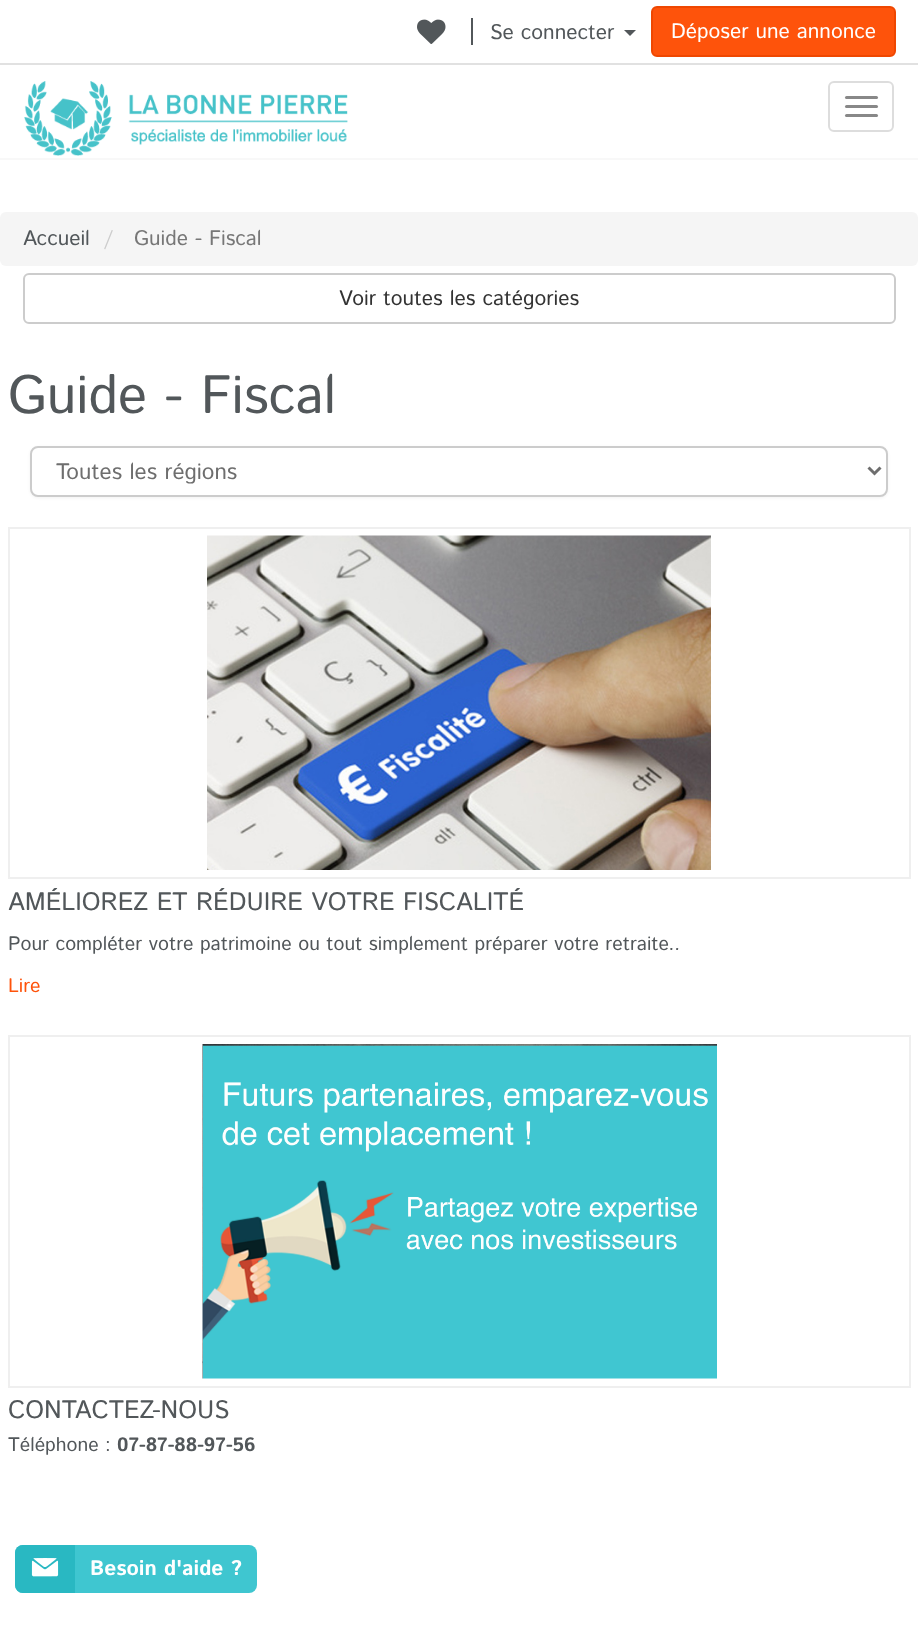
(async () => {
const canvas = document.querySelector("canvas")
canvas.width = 918
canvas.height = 1638
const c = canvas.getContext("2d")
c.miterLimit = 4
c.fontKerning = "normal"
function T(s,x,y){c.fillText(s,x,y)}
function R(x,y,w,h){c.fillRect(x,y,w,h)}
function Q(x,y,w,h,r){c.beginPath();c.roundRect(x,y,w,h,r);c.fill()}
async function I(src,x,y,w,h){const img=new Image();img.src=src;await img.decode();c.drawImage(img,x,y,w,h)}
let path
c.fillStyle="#fff"
R(0,0,918,1638)
c.fillStyle="#f8f8f8"
R(0,158,918,2)
c.fillStyle="#e1e1e1"
R(0,63,918,2)
await I("1.png",417,19,29,25)
c.fillStyle="#52575a"
R(471,18,2,27)
c.font="21px Istok Web"
T("Se connecter",490,39)
path = new Path2D("M624 30h12l-6 6z")
c.fill(path)
c.fillStyle="#fe530b"
c.beginPath()
c.roundRect(652,7,243,49,5)
c.fill()
c.strokeStyle="#ef4701"
c.lineWidth=2
c.stroke()
c.fillStyle="#fff"
T("Déposer une annonce",671,38)
await I("2.png",24,81,324,75)
c.beginPath()
c.roundRect(829,82,64,49,5)
c.strokeStyle="#ddd"
c.stroke()
c.fillStyle="#888"
Q(845,96,33,3,1.5)
Q(845,105,33,3,1.5)
Q(845,114,33,3,1.5)
c.fillStyle="#f5f5f5"
Q(0,212,918,54,6)
c.fillStyle="#52575a"
T("Accueil",23,245)
c.fillStyle="#ccc"
T("/",104,245)
c.fillStyle="#777"
T("Guide - Fiscal",134,245)
c.beginPath()
c.roundRect(24,274,871,49,5)
c.strokeStyle="#ccc"
c.stroke()
c.fillStyle="#333"
T("Voir toutes les catégories",339,305)
c.font="54px Istok Web"
c.fillStyle="#52575a"
T("Guide - Fiscal",8,413)
c.fillStyle="#0000000d"
c.filter="blur(1.5px)"
c.beginPath()
c.roundRect(30,447,858,51,8)
c.fill()
c.filter="none"
c.fillStyle="#fff"
c.beginPath()
c.roundRect(31,447,856,49,7)
c.fill()
c.stroke()
path = new Path2D("M868.5 467.5l6 6l6-6")
c.strokeStyle="#6e6e6e"
c.lineWidth=3
c.stroke(path)
c.font="22.5px Istok Web"
c.fillStyle="#6e6e6e"
T("Toutes les régions",56,479)
c.strokeStyle="#efefef"
c.lineWidth=2
c.strokeRect(9,528,901,350)
await I("3.png",207,535,504,335)
c.font="25.2px Istok Web"
c.fillStyle="#52575a"
T("AMÉLIOREZ ET RÉDUIRE VOTRE FISCALITÉ",8,910)
c.font="19.5px Istok Web"
T("Pour compléter votre patrimoine ou tout simplement préparer votre retraite..",8,950)
c.fillStyle="#fe530b"
T("Lire",8,992)
c.strokeRect(9,1036,901,351)
await I("4.png",202,1044,515,335)
c.font="25.2px Istok Web"
c.fillStyle="#52575a"
T("CONTACTEZ-NOUS",8,1418)
c.font="19.5px Istok Web"
T("Téléphone :",8,1451)
c.font="bold 19.5px Istok Web"
T("07-87-88-97-56",117,1451)
c.fillStyle="#3fc6d0"
Q(15,1545,242,48,8)
c.fillStyle="#29b8c2"
c.beginPath()
c.roundRect(15,1545,60,48,[8,0,0,8])
c.fill()
await I("5.png",31,1558,28,19)
c.font="bold 21px Istok Web"
c.fillStyle="#fff"
T("Besoin d'aide ?",90,1575)
})()
